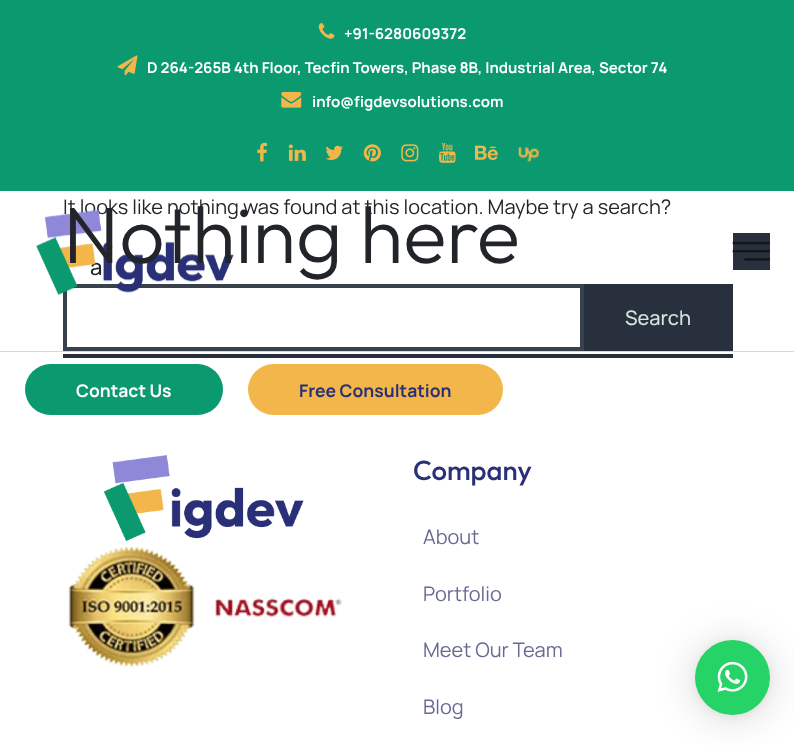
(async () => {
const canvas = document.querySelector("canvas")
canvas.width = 794
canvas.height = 745
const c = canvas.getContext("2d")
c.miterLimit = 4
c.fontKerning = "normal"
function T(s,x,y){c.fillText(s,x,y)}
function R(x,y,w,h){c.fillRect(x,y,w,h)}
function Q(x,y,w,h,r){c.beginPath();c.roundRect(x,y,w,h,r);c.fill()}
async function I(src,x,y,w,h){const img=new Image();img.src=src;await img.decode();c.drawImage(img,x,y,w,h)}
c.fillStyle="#fff"
R(0,0,794,745)
c.fillStyle="#0b996f"
R(0,0,794,191)
await I("1.png",318,23,17,16)
c.font="bold 15px Manrope"
c.fillStyle="#fff"
T("+91-6280609372",344,39)
await I("2.png",117,55,21,21)
T("D 264-265B 4th Floor, Tecfin Towers, Phase 8B, Industrial Area, Sector 74",147,73)
await I("3.png",281,91,21,17)
T("info@figdevsolutions.com",312,107)
await I("4.png",257,142,10,20)
await I("5.png",288,144,18,17)
await I("6.png",325,145,18,15)
await I("7.png",363,144,18,18)
await I("8.png",401,144,18,18)
await I("9.png",439,142,17,21)
await I("10.png",475,145,23,15)
await I("11.png",518,147,21,15)
c.font="20px Manrope"
c.fillStyle="#212529"
T("It looks like nothing was found at this location. Maybe try a search?",63,214)
c.font="500 22px Manrope"
T("a",90,275)
c.strokeStyle="#39414d"
c.lineWidth=4
c.strokeRect(65,286,517,63)
c.fillStyle="#28303d"
R(584,284,149,67)
c.font="500 20px Manrope"
c.fillStyle="#d1e4dd"
T("Search",625,325)
c.fillStyle="#28303d"
R(63,354,670,4)
await I("12.png",36,210,198,86)
c.font="300 80px Outfit"
c.fillStyle="#212529"
T("Nothing here",63,263)
c.fillStyle="#28303d"
R(733,233,37,37)
await I("13.png",732,241,38,20)
c.fillStyle="#0b996f"
Q(25,364,198,51,25.5)
c.font="bold 17.5px Manrope"
c.fillStyle="#fff"
T("Contact Us",76,397)
c.fillStyle="#f2b64a"
Q(248,364,255,51,25.5)
c.fillStyle="#2a3077"
T("Free Consultation",299,397)
c.fillStyle="#d4d6e4"
R(0,351,794,1)
await I("14.png",104,455,200,87)
await I("15.png",68,546,275,122)
c.font="500 27.5px Outfit"
c.fillStyle="#2a3077"
T("Company",413,480)
c.font="20px Manrope"
c.fillStyle="#666a93"
T("About",423,544)
T("Portfolio",423,601)
T("Meet Our Team",423,657)
T("Blog",423,714)
c.fillStyle="#00000029"
c.filter="blur(20px)"
c.beginPath()
c.roundRect(695,643,75,75,37.5)
c.fill()
c.filter="none"
c.fillStyle="#0000000f"
c.filter="blur(4px)"
c.beginPath()
c.roundRect(695,641,75,75,37.5)
c.fill()
c.filter="none"
c.fillStyle="#25d366"
c.beginPath()
c.arc(732.5,677.5,37.5,0,7)
c.fill()
await I("16.png",717,661,31,31)
})()
